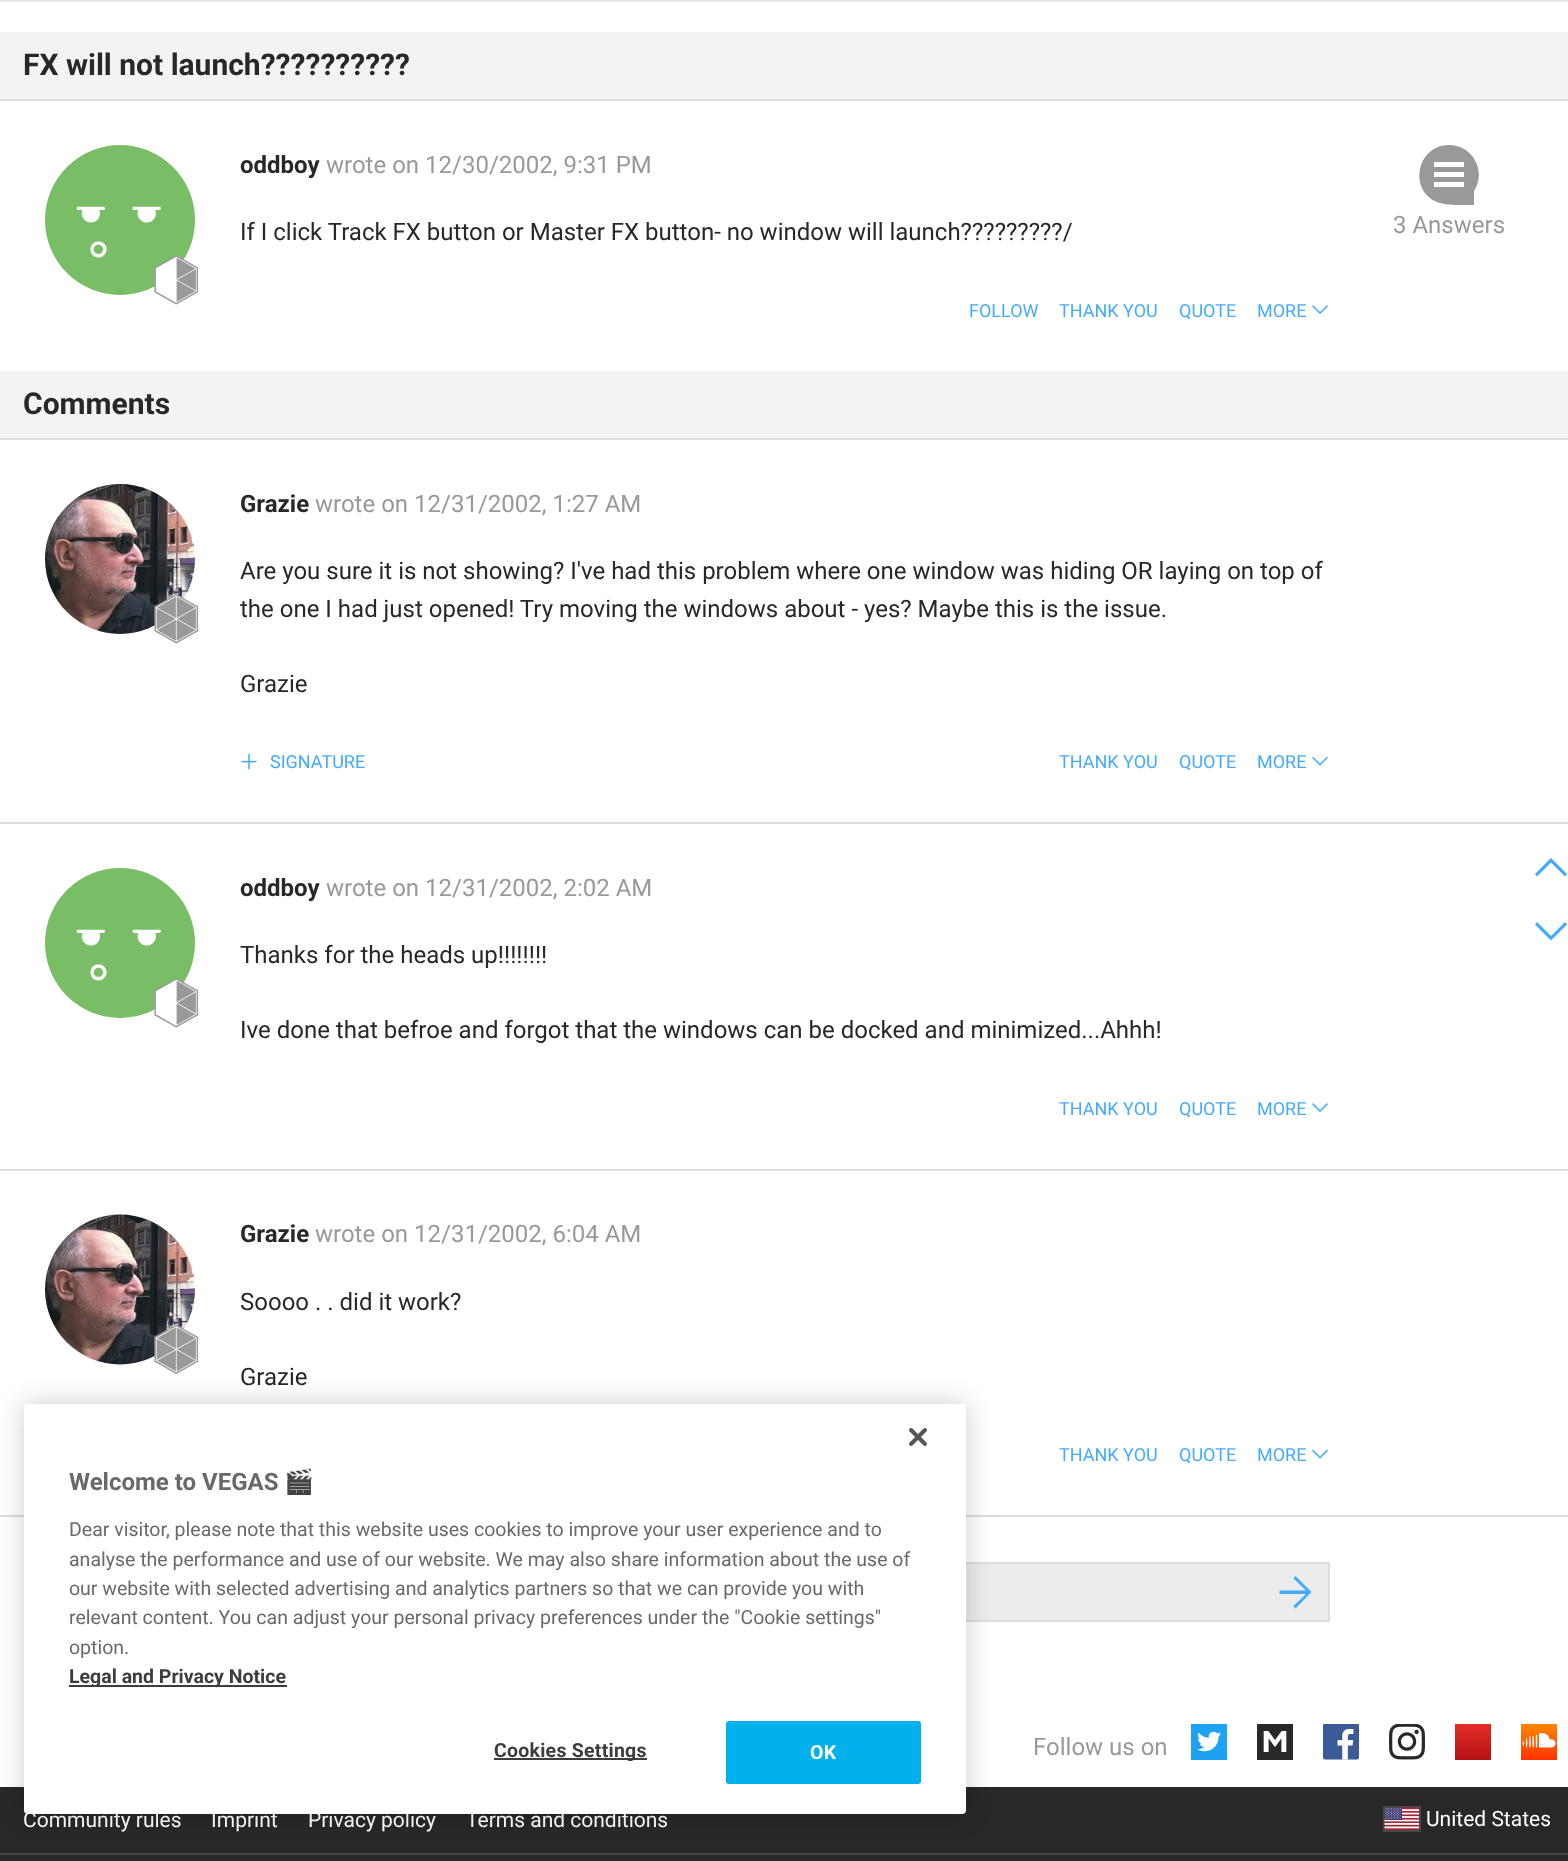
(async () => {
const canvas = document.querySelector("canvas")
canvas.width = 1568
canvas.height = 1861
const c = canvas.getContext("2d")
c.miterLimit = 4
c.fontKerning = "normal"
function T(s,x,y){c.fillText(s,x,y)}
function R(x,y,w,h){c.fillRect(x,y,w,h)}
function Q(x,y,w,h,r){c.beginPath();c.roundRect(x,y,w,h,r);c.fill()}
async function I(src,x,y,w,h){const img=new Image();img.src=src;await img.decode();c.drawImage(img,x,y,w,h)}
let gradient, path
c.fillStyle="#fff"
R(0,0,1568,1861)
c.fillStyle="#0000001a"
R(0,0,1568,2)
c.fillStyle="#f3f3f3"
R(0,32,1568,67)
c.fillStyle="#ddd"
R(0,99,1568,2)
c.font="bold 30px Roboto"
c.fillStyle="#282828"
T("FX will not launch??????????",23,75)
await I("1.png",45,145,150,150)
c.fillStyle="#fff"
path = new Path2D("M197 292v-24l-21-12l-21 12v24l21 12z")
c.fill(path)
await I("2.png",154,255,45,50)
c.font="bold 24px Roboto"
c.fillStyle="#282828"
T("oddboy",240,173)
c.font="24px Roboto"
c.fillStyle="#999"
T("wrote on 12/30/2002, 9:31 PM",326,173)
c.fillStyle="#282828"
T("If I click Track FX button or Master FX button- no window will launch?????????/",240,240)
c.font="18px Roboto"
c.fillStyle="#4af"
T("FOLLOW",969,317)
T("THANK YOU",1059,317)
T("QUOTE",1179,317)
T("MORE",1257,317)
await I("3.png",1312,305,16,9)
c.fillStyle="#999"
path = new Path2D("M1449 145c-32 0-41 45-12 57c10 4 28 3 37 3v-14c13-19-1-46-25-46zm15 42h-30v-5h30zm0-10h-30v-5h30zm0-10h-30v-5h30z")
c.fill(path)
c.font="24px Roboto"
T("3 Answers",1393,233)
c.fillStyle="#f3f3f3"
R(0,371,1568,67)
c.fillStyle="#ddd"
R(0,438,1568,2)
c.font="bold 30px Roboto"
c.fillStyle="#282828"
T("Comments",23,414)
await I("4.png",45,484,150,150)
c.fillStyle="#fff"
path = new Path2D("M197 631v-24l-21-12l-21 12v24l21 12z")
c.fill(path)
await I("5.png",154,594,45,50)
c.font="bold 24px Roboto"
c.fillStyle="#282828"
T("Grazie",240,512)
c.font="24px Roboto"
c.fillStyle="#999"
T("wrote on 12/31/2002, 1:27 AM",315,512)
c.fillStyle="#282828"
T("Are you sure it is not showing? I've had this problem where one window was hiding OR laying on top of",240,579)
T("the one I had just opened! Try moving the windows about - yes? Maybe this is the issue.",240,617)
T("Grazie",240,692)
await I("6.png",241,754,16,16)
c.font="18px Roboto"
c.fillStyle="#4af"
T("SIGNATURE",270,768)
T("THANK YOU",1059,768)
T("QUOTE",1179,768)
T("MORE",1257,768)
await I("7.png",1312,756,16,10)
c.fillStyle="#ddd"
R(0,822,1568,2)
await I("8.png",45,868,150,150)
c.fillStyle="#fff"
path = new Path2D("M197 1015v-24l-21-12l-21 12v24l21 12z")
c.fill(path)
await I("2.png",154,978,45,50)
c.font="bold 24px Roboto"
c.fillStyle="#282828"
T("oddboy",240,896)
c.font="24px Roboto"
c.fillStyle="#999"
T("wrote on 12/31/2002, 2:02 AM",326,896)
c.fillStyle="#282828"
T("Thanks for the heads up!!!!!!!!",240,963)
T("Ive done that befroe and forgot that the windows can be docked and minimized...Ahhh!",240,1038)
c.font="18px Roboto"
c.fillStyle="#4af"
T("THANK YOU",1059,1115)
T("QUOTE",1179,1115)
T("MORE",1257,1115)
await I("3.png",1312,1103,16,9)
path = new Path2D("M1535 874l2 2.5l14-14l14 14l2-2.5l-16-16z")
c.fill(path)
path = new Path2D("M1567 924.5l-2-2.5l-14 14l-14-14l-2 2.5l16 16z")
c.fill(path)
c.fillStyle="#ddd"
R(0,1169,1568,2)
await I("9.png",44,1214,151,151)
c.fillStyle="#fff"
path = new Path2D("M197 1361v-24l-21-12l-21 12v24l21 12z")
c.fill(path)
await I("10.png",154,1324,45,50)
c.font="bold 24px Roboto"
c.fillStyle="#282828"
T("Grazie",240,1242)
c.font="24px Roboto"
c.fillStyle="#999"
T("wrote on 12/31/2002, 6:04 AM",315,1242)
c.fillStyle="#282828"
T("Soooo . . did it work?",240,1310)
T("Grazie",240,1385)
c.font="18px Roboto"
c.fillStyle="#4af"
T("THANK YOU",1059,1461)
T("QUOTE",1179,1461)
T("MORE",1257,1461)
await I("7.png",1312,1449,16,10)
c.fillStyle="#ddd"
R(0,1515,1568,2)
c.fillStyle="#ececec"
R(966,1564,362,56)
c.fillStyle="#ddd"
R(966,1562,363,2)
R(966,1620,297,2)
R(1328,1562,2,60)
R(1262,1620,67,2)
c.fillStyle="#4af"
path = new Path2D("M1279.5 1594h26.5l-12.5 12l2 2.5l16-16.5l-16-16l-2 2.5l12.5 12h-26.5z")
c.fill(path)
c.font="24px Roboto"
c.fillStyle="#999"
T("Follow us on",1033,1755)
await I("11.png",1191,1724,36,36)
await I("12.png",1257,1724,36,36)
await I("13.png",1323,1724,36,36)
await I("14.png",1389,1724,36,36)
gradient = c.createLinearGradient(1473,1760,1473,1724)
gradient.addColorStop(0,"#b31217")
gradient.addColorStop(1,"#e52d27")
c.fillStyle = gradient
R(1455,1724,36,36)
await I("15.png",1521,1724,36,36)
c.fillStyle="#282828"
R(0,1787,1568,74)
c.fillStyle="#444"
R(0,1853,1568,2)
c.font="21px Roboto"
c.fillStyle="#fff"
T("Community rules",23,1827)
T("Imprint",211,1827)
T("Privacy policy",308,1827)
T("Terms and conditions",466,1827)
await I("16.png",1383,1806,38,26)
T("United States",1426,1826)
c.fillStyle="#00000033"
c.filter="blur(13.5px)"
c.beginPath()
c.roundRect(24,1404,942,410,4)
c.fill()
c.filter="none"
c.fillStyle="#fff"
Q(24,1404,942,410,4)
await I("17.png",909,1428,18,18)
c.font="bold 24px Roboto"
c.fillStyle="#696969"
T("Welcome to VEGAS",69,1490)
c.font="bold 24px Noto Color Emoji"
T("🎬",284,1490)
c.font="19.5px Roboto"
T("Dear visitor, please note that this website uses cookies to improve your user experience and to",69,1536)
T("analyse the performance and use of our website. We may also share information about the use of",69,1566)
T("our website with selected advertising and analytics partners so that we can provide you with",69,1595)
T("relevant content. You can adjust your personal privacy preferences under the \"Cookie settings\"",69,1624)
T("option.",69,1654)
c.fillStyle="#3d3d3d"
R(69,1685,218,2)
c.font="bold 19.5px Roboto"
T("Legal and Privacy Notice",69,1683)
R(494,1758,153,2)
c.letterSpacing="0.25px"
T("Cookies Settings",494,1757)
c.fillStyle="#00b1ec"
c.beginPath()
c.roundRect(727,1722,193,61,2)
c.fill()
c.strokeStyle="#00b1ec"
c.lineWidth=2
c.stroke()
c.fillStyle="#fff"
T("OK",810,1759)
})()
